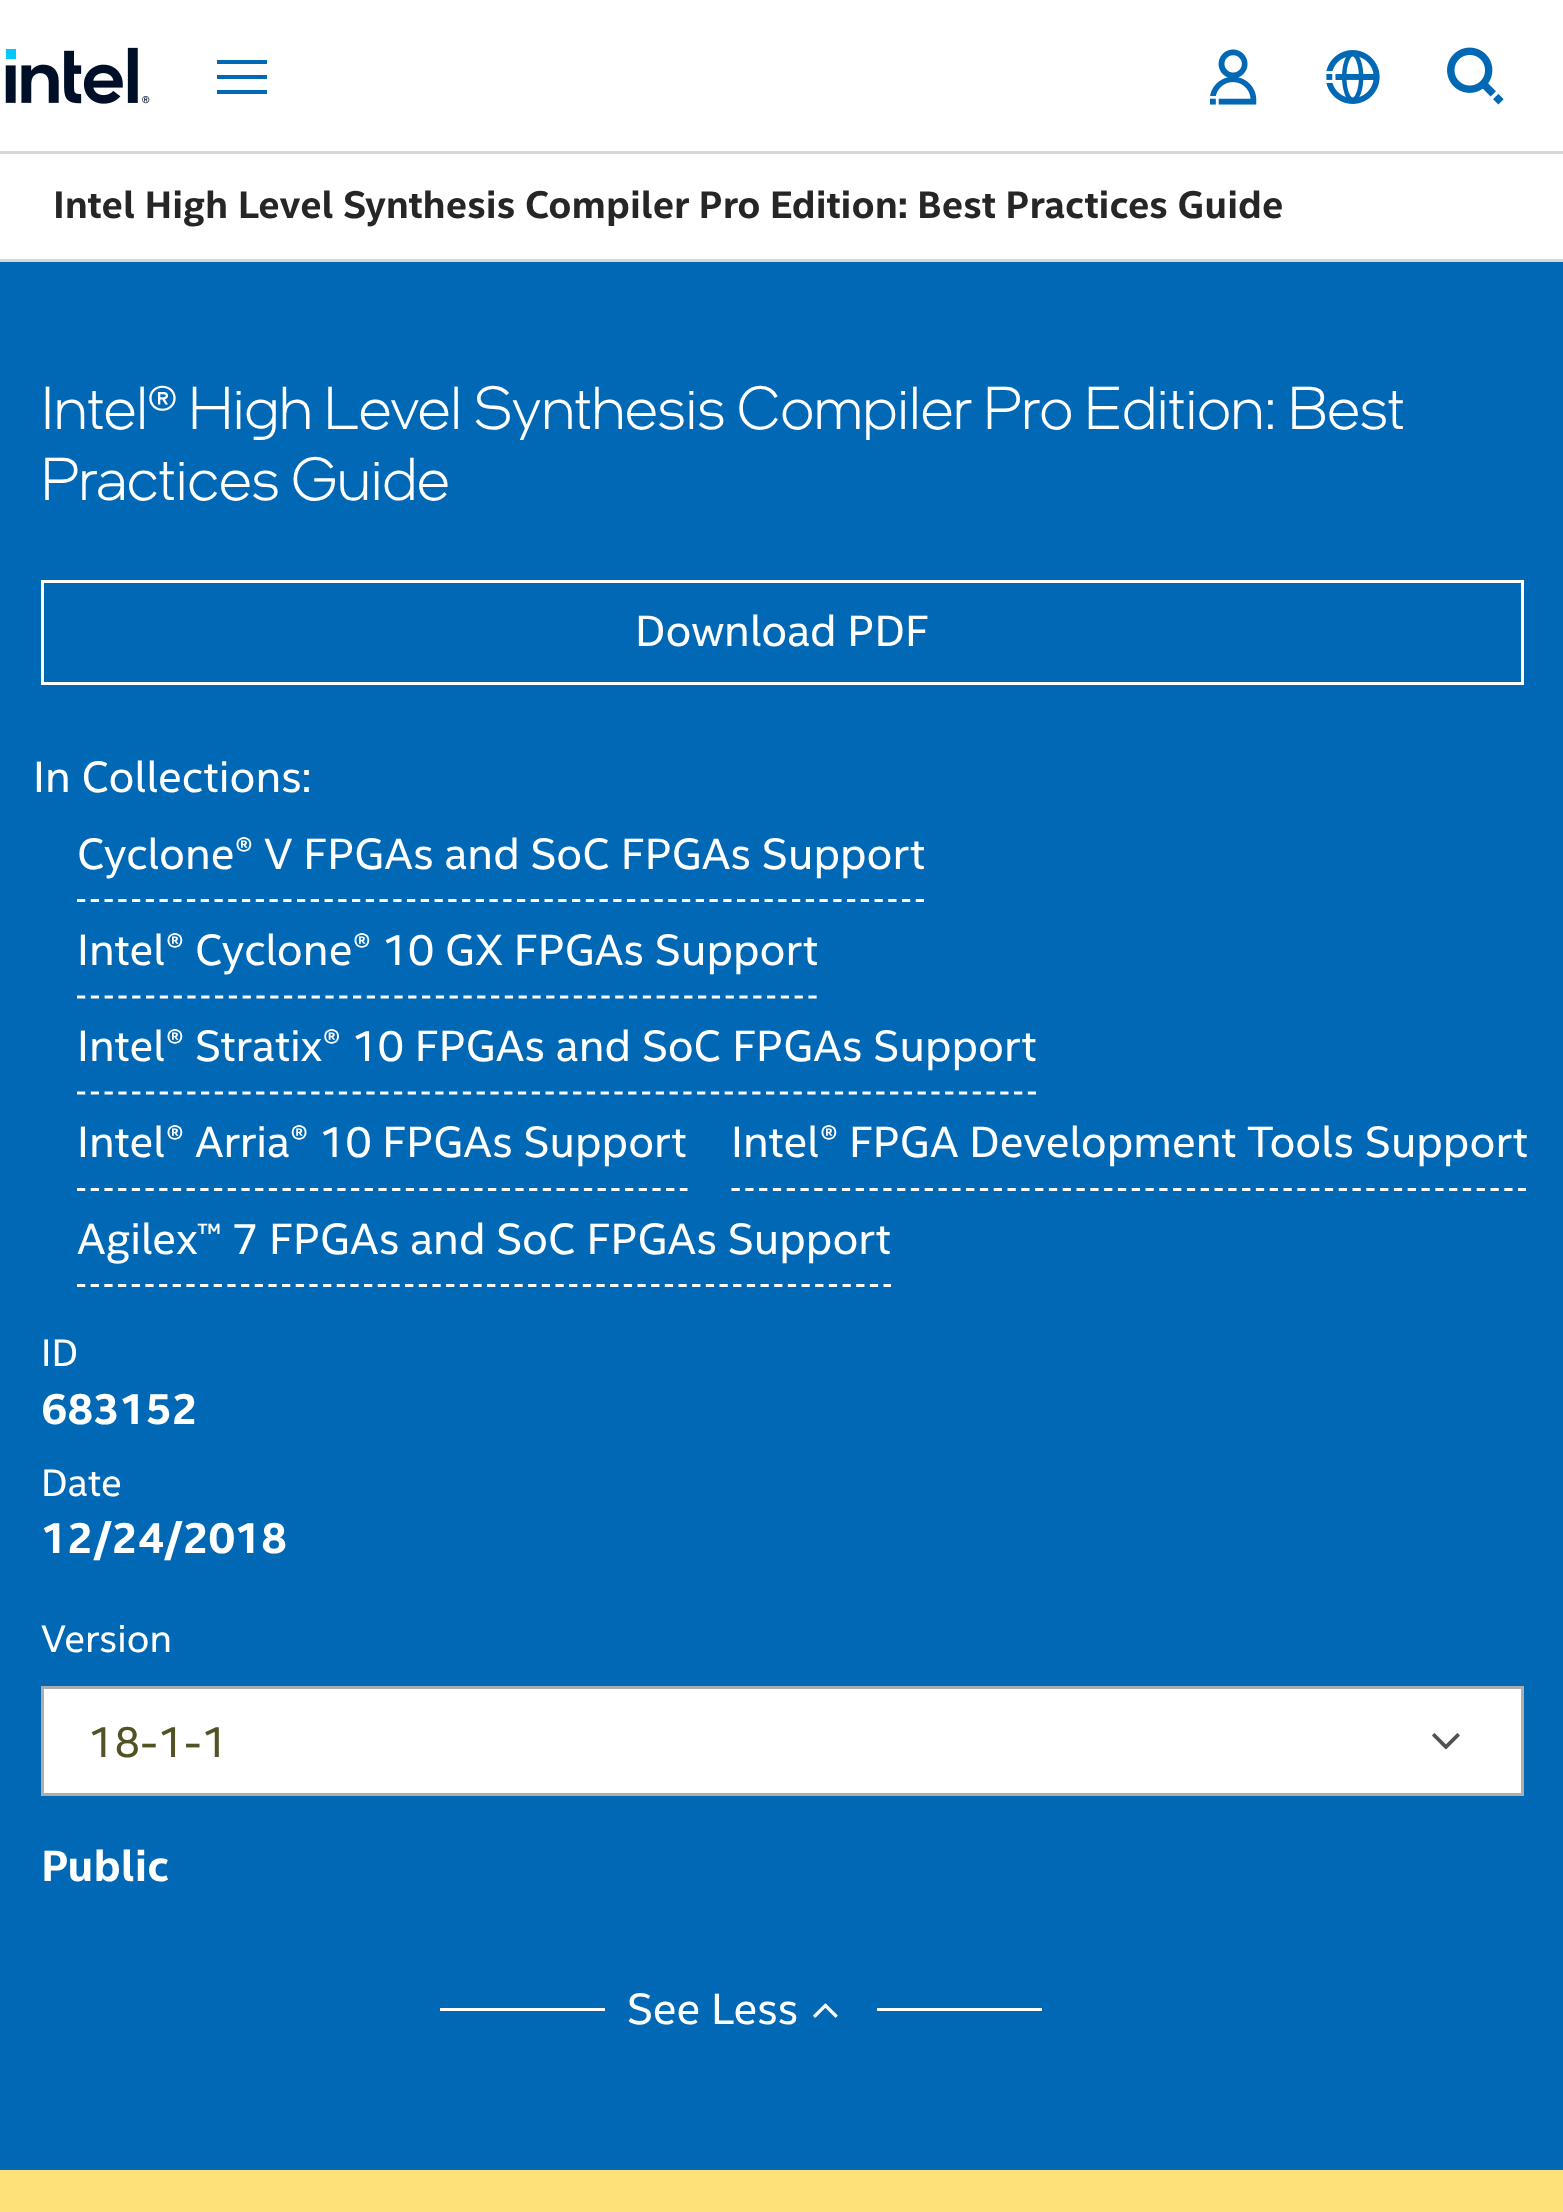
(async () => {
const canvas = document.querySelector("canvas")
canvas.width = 1563
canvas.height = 2212
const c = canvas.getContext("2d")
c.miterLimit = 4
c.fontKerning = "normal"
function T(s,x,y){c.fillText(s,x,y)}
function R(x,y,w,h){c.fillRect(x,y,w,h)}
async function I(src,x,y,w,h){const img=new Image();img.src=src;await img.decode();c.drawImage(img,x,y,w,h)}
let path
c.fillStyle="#fff"
R(0,0,1563,2212)
c.fillStyle="#d7d7d7"
R(0,151,1563,3)
await I("1.png",5,47,145,57)
c.fillStyle="#0068b5"
path = new Path2D("M267 60v4h-50v-4zm-50 19h50v-4h-50zm0 15h50v-4h-50z")
c.fill(path)
await I("2.png",1210,49,47,56)
await I("3.png",1326,50,54,54)
await I("4.png",1447,47,57,58)
c.fillStyle="#d7d7d7"
R(0,259,1563,3)
c.font="bold 38.5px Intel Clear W"
c.fillStyle="#262626"
T("Intel High Level Synthesis Compiler Pro Edition: Best Practices Guide",53,218)
c.fillStyle="#0068b5"
R(0,262,1563,1908)
c.font="300 60.5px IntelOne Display"
c.fillStyle="#fff"
T("Intel® High Level Synthesis Compiler Pro Edition: Best",41,429)
T("Practices Guide",41,500)
c.strokeStyle="#fff"
c.lineWidth=3
c.strokeRect(42.5,581.5,1480,102)
c.font="44px Intel Clear W"
T("Download PDF",635,646)
T("In Collections:",33,792)
path = new Path2D("M77 900.5h847")
c.lineWidth=2.8
c.setLineDash([8.25,5.5])
c.stroke(path)
T("Cyclone® V FPGAs and SoC FPGAs Support",77,869)
path = new Path2D("M77 997h740")
c.setLineDash([8.25,5.55])
c.stroke(path)
T("Intel® Cyclone® 10 GX FPGAs Support",77,965)
path = new Path2D("M77 1093h960")
c.setLineDash([8.25,5.53])
c.stroke(path)
T("Intel® Stratix® 10 FPGAs and SoC FPGAs Support",77,1061)
path = new Path2D("M77 1189.5h610.5")
c.setLineDash([8.25,5.45])
c.stroke(path)
T("Intel® Arria® 10 FPGAs Support",77,1157)
path = new Path2D("M731.5 1189.5h794.5")
c.setLineDash([8.25,5.55])
c.stroke(path)
T("Intel® FPGA Development Tools Support",731,1157)
path = new Path2D("M77 1285.5h814")
c.setLineDash([8.25,5.42])
c.stroke(path)
T("Agilex™ 7 FPGAs and SoC FPGAs Support",77,1254)
c.font="38.5px Intel Clear W"
T("ID",41,1366)
c.font="bold 44px Intel Clear W"
T("683152",41,1424)
c.font="38.5px Intel Clear W"
T("Date",41,1496)
c.font="bold 44px Intel Clear W"
T("12/24/2018",41,1553)
c.font="38.5px Intel Clear W"
T("Version",41,1652)
c.beginPath()
c.rect(42.5,1687.5,1480,107)
c.fill()
c.strokeStyle="#aeaeae"
c.lineWidth=3
c.setLineDash([])
c.stroke()
c.font="44px Intel Clear W"
c.fillStyle="#525225"
T("18-1-1",88,1757)
await I("5.png",1432,1733,28,17)
c.font="bold 44px Intel Clear W"
c.fillStyle="#fff"
T("Public",41,1881)
R(440,2008,165,3)
c.font="44px Intel Clear W"
T("See Less",627,2024)
await I("6.png",813,2003,25,15)
R(877,2008,165,3)
c.fillStyle="#ffe17a"
R(0,2170,1563,42)
})()
